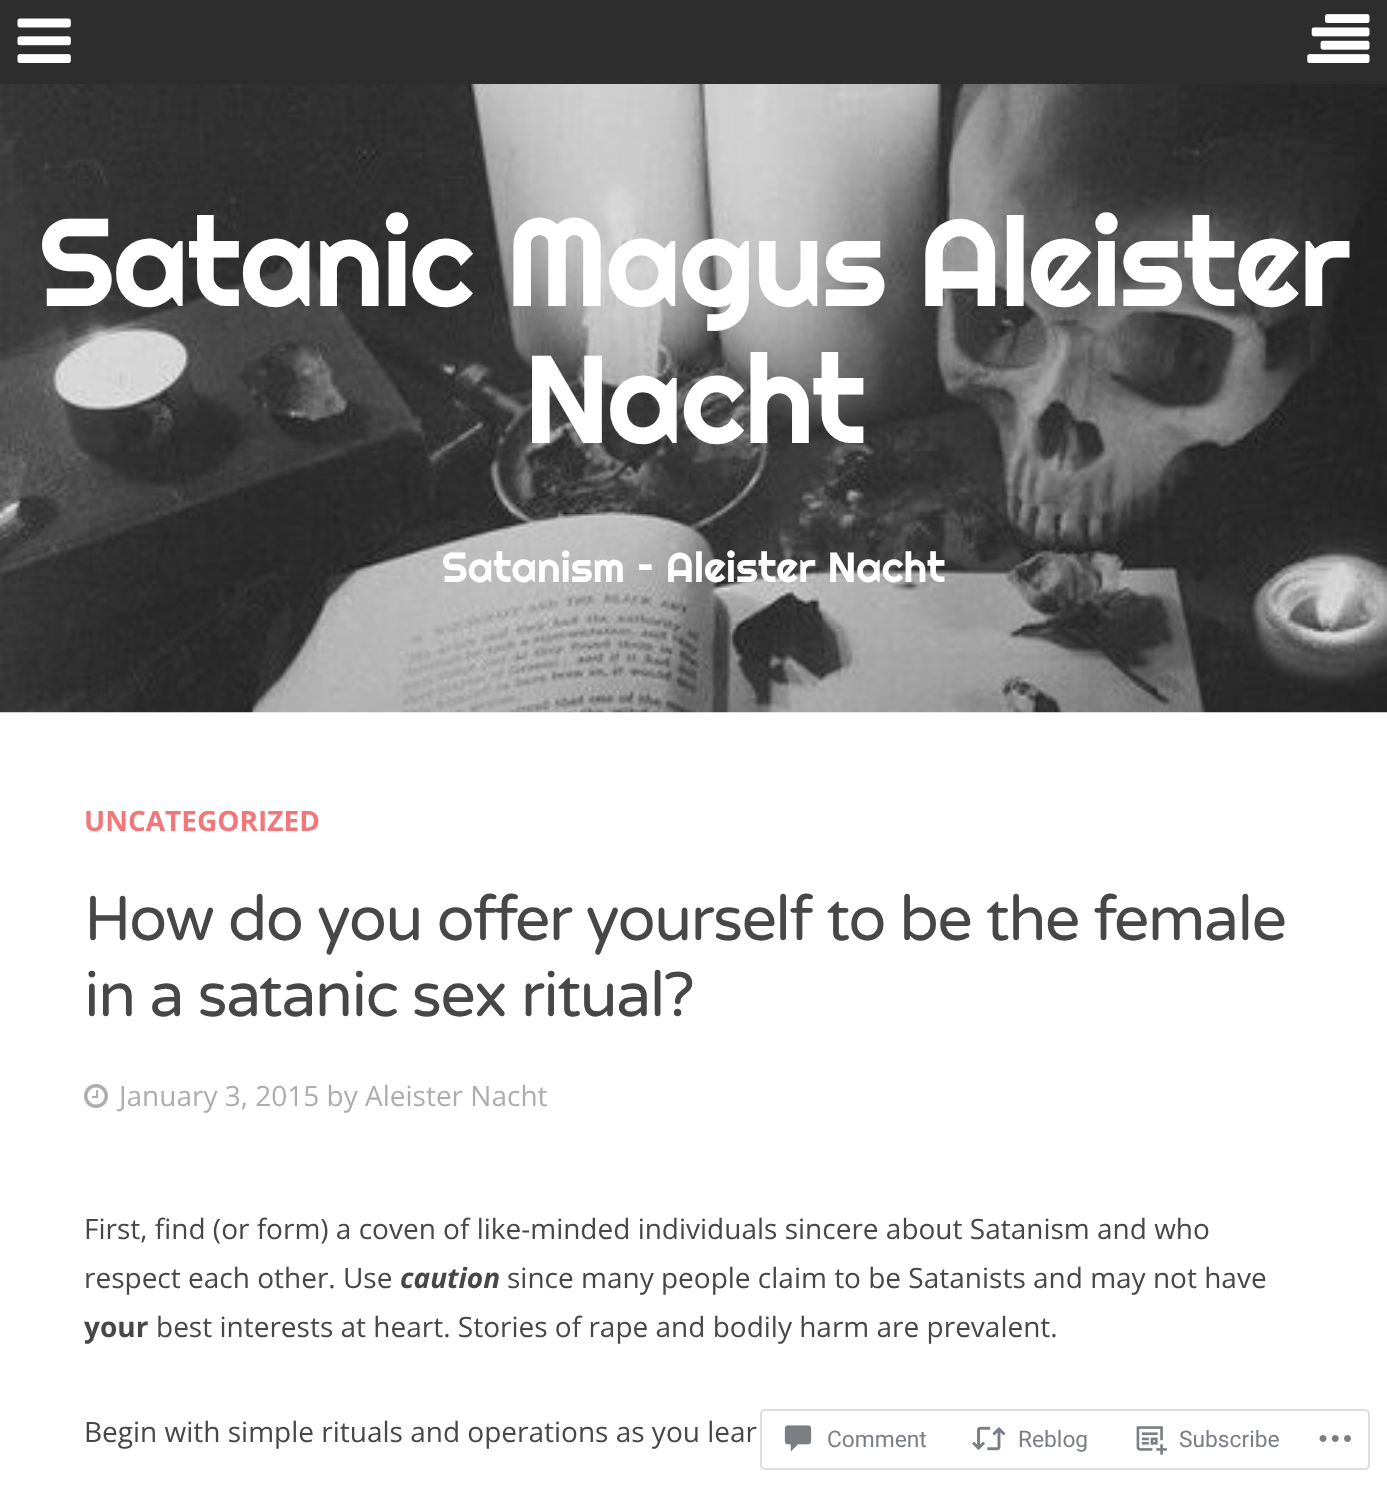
(async () => {
const canvas = document.querySelector("canvas")
canvas.width = 1387
canvas.height = 1487
const c = canvas.getContext("2d")
c.miterLimit = 4
c.fontKerning = "normal"
function T(s,x,y){c.fillText(s,x,y)}
function R(x,y,w,h){c.fillRect(x,y,w,h)}
async function I(src,x,y,w,h){const img=new Image();img.src=src;await img.decode();c.drawImage(img,x,y,w,h)}
c.fillStyle="#2d2d2d"
R(0,0,1387,1487)
await I("1.png",17,18,54,45)
await I("2.png",1307,14,63,49)
c.fillStyle="#fff"
R(0,712,1387,775)
await I("3.png",0,84,1387,629)
c.letterSpacing="-1.75px"
c.font="124.5px Righteous"
T("Satanic Magus Aleister",39,306)
T("Nacht",524,443)
c.letterSpacing="0px"
c.font="42px Righteous"
T("Satanism – Aleister Nacht",442,582)
c.font="bold 28px Open Sans"
c.fillStyle="#f2777a"
T("UNCATEGORIZED",84,831)
c.letterSpacing="-1.75px"
c.font="63px Varela Round"
c.fillStyle="#474747"
T("How do you offer yourself to be the female",84,940)
T("in a satanic sex ritual?",84,1016)
await I("4.png",84,1084,24,24)
c.letterSpacing="0px"
c.font="28px Open Sans"
c.fillStyle="#adadad"
T("January 3, 2015 by Aleister Nacht",119,1106)
c.fillStyle="#474747"
T("First, find (or form) a coven of like-minded individuals sincere about Satanism and who",84,1239)
T("respect each other. Use",84,1288)
c.font="italic bold 28px Open Sans"
T("caution",400,1288)
c.font="28px Open Sans"
T("since many people claim to be Satanists and may not have",507,1288)
c.font="bold 28px Open Sans"
T("your",84,1337)
c.font="28px Open Sans"
T("best interests at heart. Stories of rape and bodily harm are prevalent.",156,1337)
T("Begin with simple rituals and operations as you lear",84,1442)
c.beginPath()
c.roundRect(761,1410,608,59,4)
c.strokeStyle="#dcdcdefa"
c.lineWidth=2
c.stroke()
await I("5.png",784,1425,28,27)
c.font="22.75px Roboto"
c.fillStyle="#7b7f84"
T("Comment",827,1447)
await I("6.png",972,1426,34,25)
T("Reblog",1018,1447)
await I("7.png",1136,1426,31,29)
T("Subscribe",1179,1447)
await I("8.png",1319,1435,32,7)
})()
